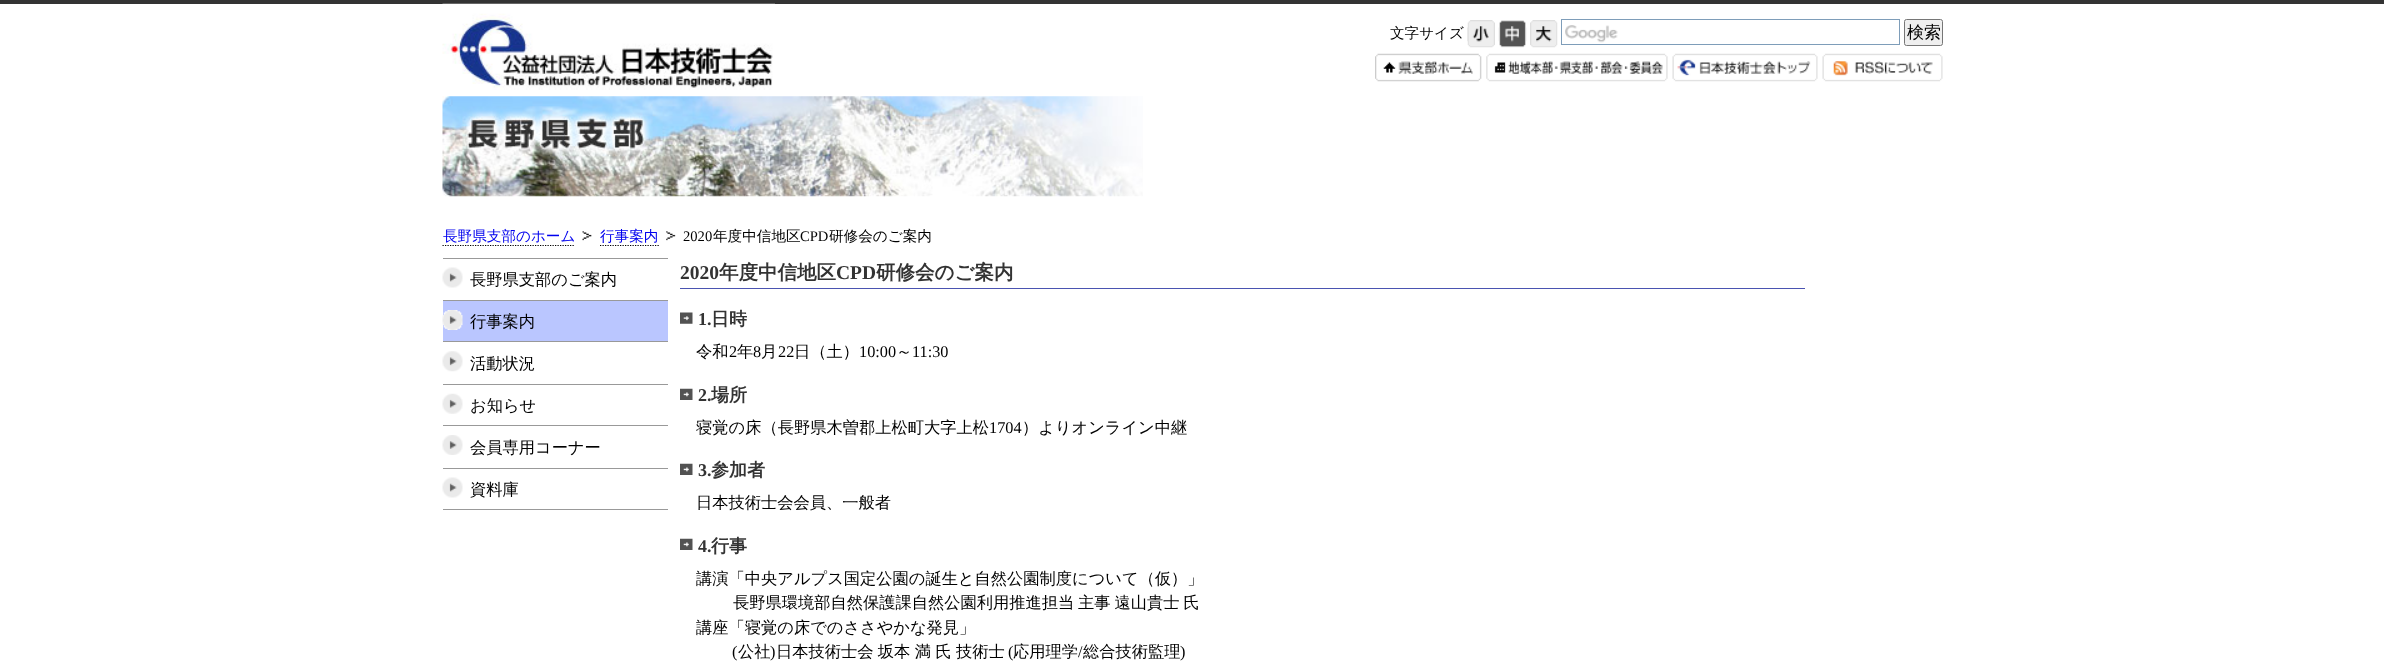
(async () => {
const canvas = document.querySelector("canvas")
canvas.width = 2384
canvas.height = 672
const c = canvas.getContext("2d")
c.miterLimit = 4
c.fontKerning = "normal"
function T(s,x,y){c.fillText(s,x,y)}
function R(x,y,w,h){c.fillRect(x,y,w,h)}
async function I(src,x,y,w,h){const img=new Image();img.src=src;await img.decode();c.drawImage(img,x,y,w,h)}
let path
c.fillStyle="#fff"
R(0,0,2384,672)
c.fillStyle="#333"
R(0,0,2384,4)
await I("1.png",442,3,333,87)
c.font="500 14.6px WenQuanYi Zen Hei"
c.fillStyle="#000"
T("文字サイズ",1390,38)
await I("6.png",1467,25,1,17)
await I("2.png",1467,20,28,28)
await I("7.png",1498,25,29,17)
await I("3.png",1499,20,27,28)
await I("4.png",1530,20,28,28)
await I("5.png",1565,25,53,18)
c.strokeStyle="#7e9db9"
c.strokeRect(1561.5,19.5,338,25)
c.fillStyle="#efefef"
c.beginPath()
c.roundRect(1904.5,19.5,38,26,2)
c.fill()
c.strokeStyle="#767676"
c.stroke()
c.font="500 17px WenQuanYi Zen Hei"
c.fillStyle="#000"
T("検索",1907,38)
await I("8.png",1375,53,107,29)
await I("9.png",1486,53,182,29)
await I("10.png",1672,53,146,29)
await I("11.png",1822,53,121,29)
await I("12.png",442,96,701,101)
c.font="500 14.6px WenQuanYi Zen Hei"
c.fillStyle="#00e"
T("長野県支部のホーム",443,241)
path = new Path2D("M442.5 245.5h132.5")
c.strokeStyle="#000"
c.lineWidth=1.2
c.setLineDash([1.25,1.25])
c.stroke(path)
await I("13.png",582,231,10,10)
T("行事案内",600,241)
path = new Path2D("M600 245.5h59")
c.stroke(path)
await I("14.png",666,231,10,10)
c.font="14.6px Liberation Serif"
c.fillStyle="#000"
T("2020",683,241)
c.font="500 14.6px WenQuanYi Zen Hei"
T("年度中信地区",713,241)
c.font="14.6px Liberation Serif"
T("CPD",800,241)
c.font="500 14.6px WenQuanYi Zen Hei"
T("研修会のご案内",829,241)
c.fillStyle="#999"
R(443,258,225,1)
R(443,300,225,1)
await I("15.png",442,267,21,21)
c.font="500 16.25px WenQuanYi Zen Hei"
c.fillStyle="#000"
T("長野県支部のご案内",470,285)
c.fillStyle="#999"
R(443,341,225,1)
c.fillStyle="#bac6ff"
R(443,301,225,40)
await I("16.png",442,310,21,20)
c.fillStyle="#000"
T("行事案内",470,327)
c.fillStyle="#999"
R(443,384,225,1)
await I("17.png",442,351,21,21)
c.fillStyle="#000"
T("活動状況",470,369)
c.fillStyle="#999"
R(443,425,225,1)
await I("18.png",442,393,21,21)
c.fillStyle="#000"
T("お知らせ",470,411)
c.fillStyle="#999"
R(443,468,225,1)
await I("19.png",442,435,21,20)
c.fillStyle="#000"
T("会員専用コーナー",470,453)
c.fillStyle="#999"
R(443,509,225,1)
await I("15.png",442,477,21,21)
c.fillStyle="#000"
T("資料庫",470,495)
c.fillStyle="#4a53b1"
R(680,288,1125,1)
c.font="bold 19.5px Liberation Serif"
c.fillStyle="#333"
T("2020",680,279)
c.font="bold 19.5px WenQuanYi Zen Hei"
T("年度中信地区",719,279)
c.font="bold 19.5px Liberation Serif"
T("CPD",836,279)
c.font="bold 19.5px WenQuanYi Zen Hei"
T("研修会のご案内",876,279)
await I("20.png",680,312,13,12)
c.font="bold 18px Liberation Serif"
T("1.",698,325)
c.font="bold 18px WenQuanYi Zen Hei"
T("日時",711,325)
c.font="500 16.25px WenQuanYi Zen Hei"
c.fillStyle="#000"
T("令和",696,357)
c.font="16.25px Liberation Serif"
T("2",729,357)
c.font="500 16.25px WenQuanYi Zen Hei"
T("年",737,357)
c.font="16.25px Liberation Serif"
T("8",753,357)
c.font="500 16.25px WenQuanYi Zen Hei"
T("月",761,357)
c.font="16.25px Liberation Serif"
T("22",778,357)
c.font="500 16.25px WenQuanYi Zen Hei"
T("日（土）",794,357)
c.font="16.25px Liberation Serif"
T("10:00",859,357)
c.font="500 16.25px WenQuanYi Zen Hei"
T("～",896,357)
c.font="16.25px Liberation Serif"
T("11:30",912,357)
await I("21.png",680,388,13,12)
c.font="bold 18px Liberation Serif"
c.fillStyle="#333"
T("2.",698,401)
c.font="bold 18px WenQuanYi Zen Hei"
T("場所",711,401)
c.font="500 16.25px WenQuanYi Zen Hei"
c.fillStyle="#000"
T("寝覚の床（長野県木曽郡上松町大字上松",696,433)
c.font="16.25px Liberation Serif"
T("1704",989,433)
c.font="500 16.25px WenQuanYi Zen Hei"
T("）よりオンライン中継",1022,433)
await I("21.png",680,463,13,12)
c.font="bold 18px Liberation Serif"
c.fillStyle="#333"
T("3.",698,476)
c.font="bold 18px WenQuanYi Zen Hei"
T("参加者",711,476)
c.font="500 16.25px WenQuanYi Zen Hei"
c.fillStyle="#000"
T("日本技術士会会員、一般者",696,508)
await I("21.png",680,538,13,12)
c.font="bold 18px Liberation Serif"
c.fillStyle="#333"
T("4.",698,552)
c.font="bold 18px WenQuanYi Zen Hei"
T("行事",711,552)
c.font="500 16.25px WenQuanYi Zen Hei"
c.fillStyle="#000"
T("講演「中央アルプス国定公園の誕生と自然公園制度について（仮）」",696,584)
c.wordSpacing="-1px"
T("長野県環境部自然保護課自然公園利用推進担当 主事 遠山貴士 氏",733,608)
c.wordSpacing="0px"
T("講座「寝覚の床でのささやかな発見」",696,633)
c.font="16.25px Liberation Serif"
T("(",732,657)
c.font="500 16.25px WenQuanYi Zen Hei"
T("公社",738,657)
c.font="16.25px Liberation Serif"
T(")",770,657)
c.wordSpacing="-0.5px"
c.font="500 16.25px WenQuanYi Zen Hei"
T("日本技術士会 坂本 満 氏 技術士",776,657)
c.wordSpacing="0px"
c.font="16.25px Liberation Serif"
T("(",1008,657)
c.font="500 16.25px WenQuanYi Zen Hei"
T("応用理学",1013,657)
c.font="16.25px Liberation Serif"
T("/",1078,657)
c.font="500 16.25px WenQuanYi Zen Hei"
T("総合技術監理",1083,657)
c.font="16.25px Liberation Serif"
T(")",1180,657)
})()
